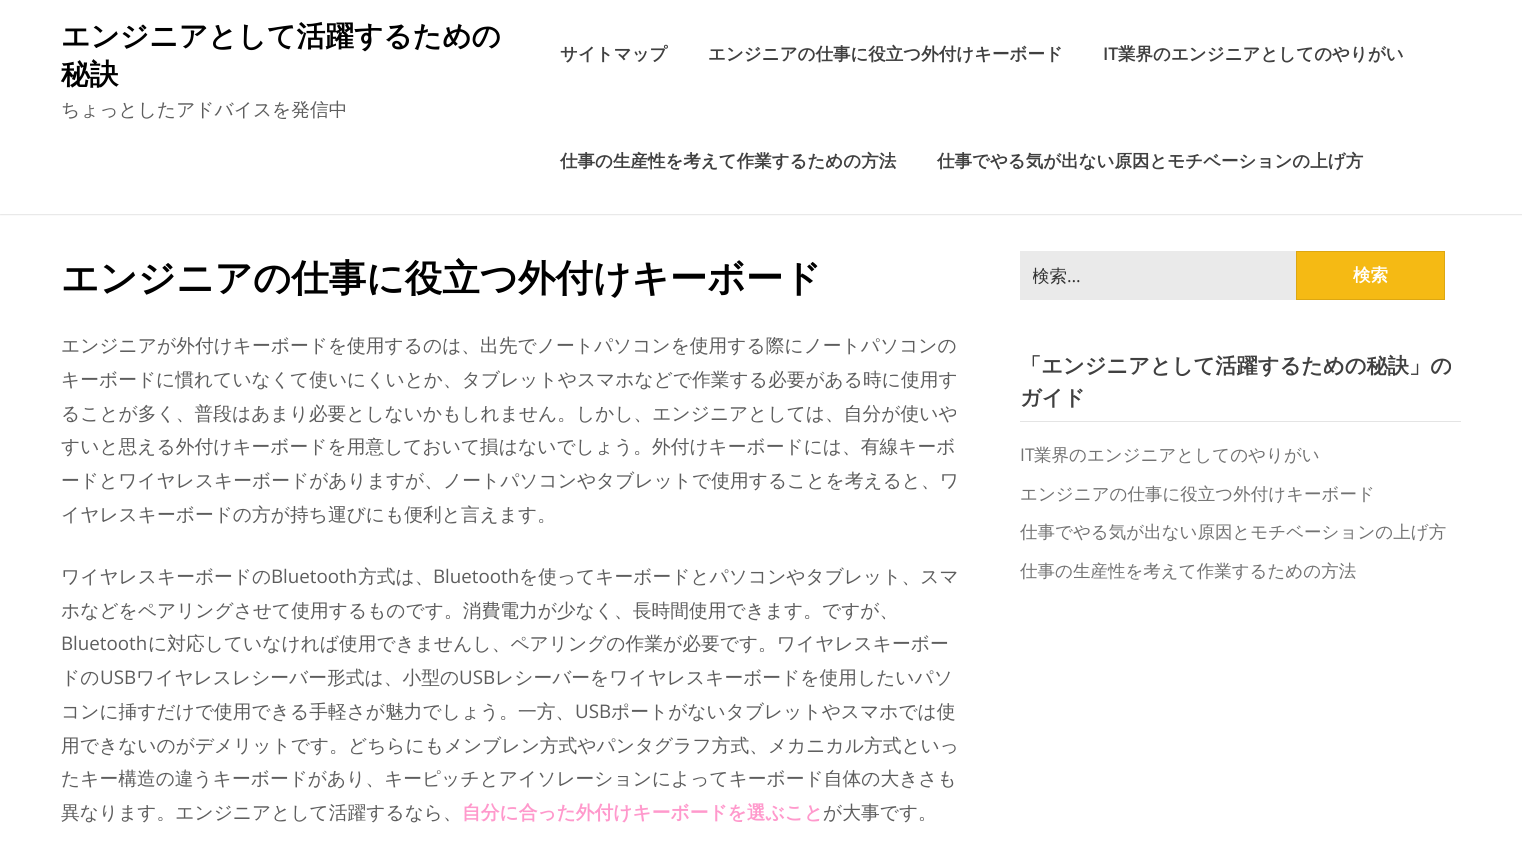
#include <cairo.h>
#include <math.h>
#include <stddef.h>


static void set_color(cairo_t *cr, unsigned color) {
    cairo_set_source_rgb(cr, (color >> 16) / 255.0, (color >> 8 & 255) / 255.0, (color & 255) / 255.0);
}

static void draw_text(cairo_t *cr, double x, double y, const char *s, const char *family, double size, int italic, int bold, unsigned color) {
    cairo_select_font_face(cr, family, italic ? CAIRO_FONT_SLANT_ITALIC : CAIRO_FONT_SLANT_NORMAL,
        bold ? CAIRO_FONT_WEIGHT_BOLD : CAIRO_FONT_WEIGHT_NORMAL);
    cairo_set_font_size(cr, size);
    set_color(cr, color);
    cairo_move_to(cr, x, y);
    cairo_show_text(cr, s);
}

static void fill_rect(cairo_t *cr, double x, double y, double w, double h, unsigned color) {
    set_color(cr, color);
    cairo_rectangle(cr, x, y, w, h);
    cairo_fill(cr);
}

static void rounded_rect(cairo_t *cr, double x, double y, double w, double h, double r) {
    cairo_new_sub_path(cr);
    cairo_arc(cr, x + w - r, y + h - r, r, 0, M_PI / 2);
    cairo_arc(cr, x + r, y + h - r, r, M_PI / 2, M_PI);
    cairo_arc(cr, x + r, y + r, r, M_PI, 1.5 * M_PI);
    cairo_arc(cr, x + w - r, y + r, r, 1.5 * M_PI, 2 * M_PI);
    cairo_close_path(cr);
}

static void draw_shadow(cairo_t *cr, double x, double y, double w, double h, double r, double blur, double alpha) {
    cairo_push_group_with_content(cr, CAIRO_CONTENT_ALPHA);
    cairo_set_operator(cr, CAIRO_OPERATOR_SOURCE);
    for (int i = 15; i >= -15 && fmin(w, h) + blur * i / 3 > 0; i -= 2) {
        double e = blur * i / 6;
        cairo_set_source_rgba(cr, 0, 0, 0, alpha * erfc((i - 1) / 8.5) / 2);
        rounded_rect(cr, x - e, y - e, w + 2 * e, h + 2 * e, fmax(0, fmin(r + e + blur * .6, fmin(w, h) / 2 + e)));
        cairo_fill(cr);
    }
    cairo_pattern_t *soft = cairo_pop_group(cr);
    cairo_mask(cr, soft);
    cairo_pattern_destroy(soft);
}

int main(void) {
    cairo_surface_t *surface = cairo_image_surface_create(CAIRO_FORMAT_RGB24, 1522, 858);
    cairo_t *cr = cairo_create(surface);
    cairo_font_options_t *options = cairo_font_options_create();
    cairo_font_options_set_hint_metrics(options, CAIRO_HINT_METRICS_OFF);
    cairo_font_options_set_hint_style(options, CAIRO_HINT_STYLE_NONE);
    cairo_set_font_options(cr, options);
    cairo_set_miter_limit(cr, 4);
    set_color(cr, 0xFFFFFF);
    cairo_paint(cr);
    set_color(cr, 0x000000);
    draw_shadow(cr, 0, 1, 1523, 214, 0, 0.5, 0.1);
    fill_rect(cr, 0, 0, 1522, 214, 0xFFFFFF);
    draw_text(cr, 61, 46, "エンジニアとして活躍するための", "WenQuanYi Zen Hei", 28.75, 0, 1, 0x000000);
    draw_text(cr, 61, 84, "秘訣", "WenQuanYi Zen Hei", 28.75, 0, 1, 0x000000);
    draw_text(cr, 61, 116, "ちょっとしたアドバイスを発信中", "WenQuanYi Zen Hei Medium", 18.75, 0, 0, 0x5D5D5D);
    draw_text(cr, 560, 60, "サイトマップ", "WenQuanYi Zen Hei", 17.5, 0, 1, 0x404040);
    draw_text(cr, 708, 60, "エンジニアの仕事に役立つ外付けキーボード", "WenQuanYi Zen Hei", 17.5, 0, 1, 0x404040);
    draw_text(cr, 1103, 60, "IT", "Open Sans SemiBold", 17.5, 0, 0, 0x404040);
    draw_text(cr, 1118, 60, "業界のエンジニアとしてのやりがい", "WenQuanYi Zen Hei", 17.5, 0, 1, 0x404040);
    draw_text(cr, 560, 167, "仕事の生産性を考えて作業するための方法", "WenQuanYi Zen Hei", 17.5, 0, 1, 0x404040);
    draw_text(cr, 937, 167, "仕事でやる気が出ない原因とモチベーションの上げ方", "WenQuanYi Zen Hei", 17.5, 0, 1, 0x404040);
    draw_text(cr, 61, 291, "エンジニアの仕事に役立つ外付けキーボード", "WenQuanYi Zen Hei", 37.5, 0, 1, 0x000000);
    draw_text(cr, 61, 352, "エンジニアが外付けキーボードを使用するのは、出先でノートパソコンを使用する際にノートパソコンの", "WenQuanYi Zen Hei Medium", 18.75, 0, 0, 0x5D5D5D);
    draw_text(cr, 61, 386, "キーボードに慣れていなくて使いにくいとか、タブレットやスマホなどで作業する必要がある時に使用す", "WenQuanYi Zen Hei Medium", 18.75, 0, 0, 0x5D5D5D);
    draw_text(cr, 61, 420, "ることが多く、普段はあまり必要としないかもしれません。しかし、エンジニアとしては、自分が使いや", "WenQuanYi Zen Hei Medium", 18.75, 0, 0, 0x5D5D5D);
    draw_text(cr, 61, 453, "すいと思える外付けキーボードを用意しておいて損はないでしょう。外付けキーボードには、有線キーボ", "WenQuanYi Zen Hei Medium", 18.75, 0, 0, 0x5D5D5D);
    draw_text(cr, 61, 487, "ードとワイヤレスキーボードがありますが、ノートパソコンやタブレットで使用することを考えると、ワ", "WenQuanYi Zen Hei Medium", 18.75, 0, 0, 0x5D5D5D);
    draw_text(cr, 61, 521, "イヤレスキーボードの方が持ち運びにも便利と言えます。", "WenQuanYi Zen Hei Medium", 18.75, 0, 0, 0x5D5D5D);
    draw_text(cr, 61, 583, "ワイヤレスキーボードの", "WenQuanYi Zen Hei Medium", 18.75, 0, 0, 0x5D5D5D);
    draw_text(cr, 271, 583, "Bluetooth", "Open Sans", 18.75, 0, 0, 0x5D5D5D);
    draw_text(cr, 358, 583, "方式は、", "WenQuanYi Zen Hei Medium", 18.75, 0, 0, 0x5D5D5D);
    draw_text(cr, 433, 583, "Bluetooth", "Open Sans", 18.75, 0, 0, 0x5D5D5D);
    draw_text(cr, 519, 583, "を使ってキーボードとパソコンやタブレット、スマ", "WenQuanYi Zen Hei Medium", 18.75, 0, 0, 0x5D5D5D);
    draw_text(cr, 61, 617, "ホなどをペアリングさせて使用するものです。消費電力が少なく、長時間使用できます。ですが、", "WenQuanYi Zen Hei Medium", 18.75, 0, 0, 0x5D5D5D);
    draw_text(cr, 61, 650, "Bluetooth", "Open Sans", 18.75, 0, 0, 0x5D5D5D);
    draw_text(cr, 148, 650, "に対応していなければ使用できませんし、ペアリングの作業が必要です。ワイヤレスキーボー", "WenQuanYi Zen Hei Medium", 18.75, 0, 0, 0x5D5D5D);
    draw_text(cr, 61, 684, "ドの", "WenQuanYi Zen Hei Medium", 18.75, 0, 0, 0x5D5D5D);
    draw_text(cr, 100, 684, "USB", "Open Sans", 18.75, 0, 0, 0x5D5D5D);
    draw_text(cr, 136, 684, "ワイヤレスレシーバー形式は、小型の", "WenQuanYi Zen Hei Medium", 18.75, 0, 0, 0x5D5D5D);
    draw_text(cr, 459, 684, "USB", "Open Sans", 18.75, 0, 0, 0x5D5D5D);
    draw_text(cr, 495, 684, "レシーバーをワイヤレスキーボードを使用したいパソ", "WenQuanYi Zen Hei Medium", 18.75, 0, 0, 0x5D5D5D);
    draw_text(cr, 61, 718, "コンに挿すだけで使用できる手軽さが魅力でしょう。一方、", "WenQuanYi Zen Hei Medium", 18.75, 0, 0, 0x5D5D5D);
    draw_text(cr, 575, 718, "USB", "Open Sans", 18.75, 0, 0, 0x5D5D5D);
    draw_text(cr, 611, 718, "ポートがないタブレットやスマホでは使", "WenQuanYi Zen Hei Medium", 18.75, 0, 0, 0x5D5D5D);
    draw_text(cr, 61, 752, "用できないのがデメリットです。どちらにもメンブレン方式やパンタグラフ方式、メカニカル方式といっ", "WenQuanYi Zen Hei Medium", 18.75, 0, 0, 0x5D5D5D);
    draw_text(cr, 61, 785, "たキー構造の違うキーボードがあり、キーピッチとアイソレーションによってキーボード自体の大きさも", "WenQuanYi Zen Hei Medium", 18.75, 0, 0, 0x5D5D5D);
    draw_text(cr, 61, 819, "異なります。エンジニアとして活躍するなら、", "WenQuanYi Zen Hei Medium", 18.75, 0, 0, 0x5D5D5D);
    draw_text(cr, 462, 819, "自分に合った外付けキーボードを選ぶこと", "WenQuanYi Zen Hei", 18.75, 0, 1, 0xFF99CC);
    draw_text(cr, 823, 819, "が大事です。", "WenQuanYi Zen Hei Medium", 18.75, 0, 0, 0x5D5D5D);
    fill_rect(cr, 1020, 251, 276, 49, 0xEAEAEA);
    cairo_save(cr);
    cairo_rectangle(cr, 1033, 264, 246, 25);
    cairo_clip(cr);
    draw_text(cr, 1032, 282, "検索", "WenQuanYi Zen Hei Medium", 17.5, 0, 0, 0x333333);
    cairo_restore(cr);
    draw_text(cr, 1067, 282, "…", "Open Sans", 17.5, 0, 0, 0x333333);
    set_color(cr, 0xF5BA14);
    cairo_rectangle(cr, 1296.5, 251.5, 148, 48);
    cairo_fill_preserve(cr);
    set_color(cr, 0xDDA712);
    cairo_set_line_width(cr, 1);
    cairo_stroke(cr);
    draw_text(cr, 1353, 281, "検索", "WenQuanYi Zen Hei", 17.5, 0, 1, 0xFFFFFF);
    fill_rect(cr, 1020, 421, 441, 1, 0xE4E4E4);
    draw_text(cr, 1020, 373, "「エンジニアとして活躍するための秘訣」の", "WenQuanYi Zen Hei", 21.25, 0, 1, 0x404040);
    draw_text(cr, 1020, 405, "ガイド", "WenQuanYi Zen Hei", 21.25, 0, 1, 0x404040);
    draw_text(cr, 1020, 461, "IT", "Open Sans", 17.5, 0, 0, 0x727272);
    draw_text(cr, 1034, 461, "業界のエンジニアとしてのやりがい", "WenQuanYi Zen Hei Medium", 17.5, 0, 0, 0x727272);
    draw_text(cr, 1020, 500, "エンジニアの仕事に役立つ外付けキーボード", "WenQuanYi Zen Hei Medium", 17.5, 0, 0, 0x727272);
    draw_text(cr, 1020, 538, "仕事でやる気が出ない原因とモチベーションの上げ方", "WenQuanYi Zen Hei Medium", 17.5, 0, 0, 0x727272);
    draw_text(cr, 1020, 577, "仕事の生産性を考えて作業するための方法", "WenQuanYi Zen Hei Medium", 17.5, 0, 0, 0x727272);
    cairo_surface_write_to_png(surface, "output.png");
    cairo_font_options_destroy(options);
    cairo_destroy(cr);
    cairo_surface_destroy(surface);
    return 0;
}
